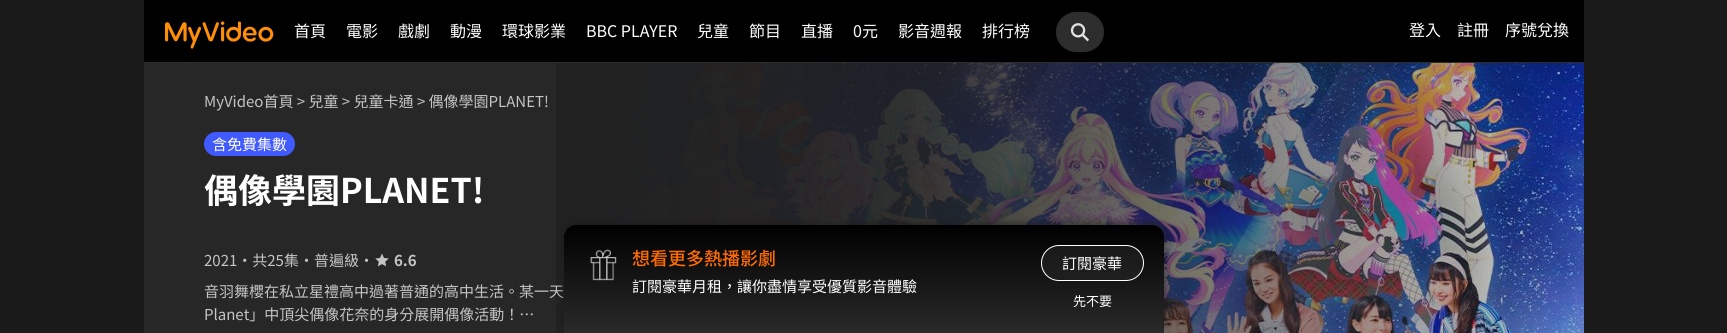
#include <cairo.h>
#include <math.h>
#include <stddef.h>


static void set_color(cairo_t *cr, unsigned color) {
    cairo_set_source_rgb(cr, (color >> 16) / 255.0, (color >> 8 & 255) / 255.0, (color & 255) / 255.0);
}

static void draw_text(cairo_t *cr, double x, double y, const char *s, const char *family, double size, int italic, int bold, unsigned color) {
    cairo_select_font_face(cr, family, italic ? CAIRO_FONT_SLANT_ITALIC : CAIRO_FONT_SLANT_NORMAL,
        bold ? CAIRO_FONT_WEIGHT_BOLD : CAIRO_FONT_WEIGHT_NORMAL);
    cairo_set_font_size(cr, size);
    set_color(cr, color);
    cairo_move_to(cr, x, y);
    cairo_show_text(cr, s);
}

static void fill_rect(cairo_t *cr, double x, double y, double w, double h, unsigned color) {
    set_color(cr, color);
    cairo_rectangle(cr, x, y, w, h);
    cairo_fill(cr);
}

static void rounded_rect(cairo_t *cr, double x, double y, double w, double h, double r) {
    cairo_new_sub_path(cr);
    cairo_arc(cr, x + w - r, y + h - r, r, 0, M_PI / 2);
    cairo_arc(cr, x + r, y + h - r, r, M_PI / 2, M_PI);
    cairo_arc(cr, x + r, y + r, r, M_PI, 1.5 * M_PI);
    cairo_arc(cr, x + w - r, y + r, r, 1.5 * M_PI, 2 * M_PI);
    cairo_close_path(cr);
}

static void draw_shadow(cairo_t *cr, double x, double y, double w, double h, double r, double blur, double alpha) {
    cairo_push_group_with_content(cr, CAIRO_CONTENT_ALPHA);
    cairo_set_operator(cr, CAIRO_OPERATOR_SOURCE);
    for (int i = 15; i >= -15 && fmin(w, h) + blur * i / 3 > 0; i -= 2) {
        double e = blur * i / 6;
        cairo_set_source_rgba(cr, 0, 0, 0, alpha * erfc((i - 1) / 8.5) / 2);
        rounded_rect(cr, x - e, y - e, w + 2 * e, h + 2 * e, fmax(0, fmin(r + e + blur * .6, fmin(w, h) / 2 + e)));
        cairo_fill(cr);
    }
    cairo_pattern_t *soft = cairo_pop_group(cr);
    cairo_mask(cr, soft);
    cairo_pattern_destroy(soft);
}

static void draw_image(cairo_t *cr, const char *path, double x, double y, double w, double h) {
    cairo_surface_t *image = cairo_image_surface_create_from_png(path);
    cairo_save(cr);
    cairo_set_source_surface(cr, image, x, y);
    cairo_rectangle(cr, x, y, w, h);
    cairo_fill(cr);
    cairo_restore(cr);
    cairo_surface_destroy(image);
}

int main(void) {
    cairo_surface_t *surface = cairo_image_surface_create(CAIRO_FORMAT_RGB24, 1727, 333);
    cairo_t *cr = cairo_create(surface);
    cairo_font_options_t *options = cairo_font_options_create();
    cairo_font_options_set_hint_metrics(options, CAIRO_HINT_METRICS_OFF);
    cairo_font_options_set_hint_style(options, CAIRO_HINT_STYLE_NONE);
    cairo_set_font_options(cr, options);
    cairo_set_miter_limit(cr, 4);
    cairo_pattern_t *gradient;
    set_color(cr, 0x1A1A1A);
    cairo_paint(cr);
    fill_rect(cr, 144, 0, 1440, 62, 0x000000);
    fill_rect(cr, 144, 62, 1440, 1, 0x2D2D2D);
    draw_image(cr, "assets/img1.png", 165, 21, 109, 28);
    draw_text(cr, 294, 37, "首頁", "Noto Sans TC", 16, 0, 0, 0xFFFFFF);
    draw_text(cr, 346, 37, "電影", "Noto Sans TC", 16, 0, 0, 0xFFFFFF);
    draw_text(cr, 398, 37, "戲劇", "Noto Sans TC", 16, 0, 0, 0xFFFFFF);
    draw_text(cr, 450, 37, "動漫", "Noto Sans TC", 16, 0, 0, 0xFFFFFF);
    draw_text(cr, 502, 37, "環球影業", "Noto Sans TC", 16, 0, 0, 0xFFFFFF);
    draw_text(cr, 586, 37, "BBC PLAYER", "Noto Sans TC", 16, 0, 0, 0xFFFFFF);
    draw_text(cr, 697, 37, "兒童", "Noto Sans TC", 16, 0, 0, 0xFFFFFF);
    draw_text(cr, 749, 37, "節目", "Noto Sans TC", 16, 0, 0, 0xFFFFFF);
    draw_text(cr, 801, 37, "直播", "Noto Sans TC", 16, 0, 0, 0xFFFFFF);
    draw_text(cr, 853, 37, "0元", "Noto Sans TC", 16, 0, 0, 0xFFFFFF);
    draw_text(cr, 898, 37, "影音週報", "Noto Sans TC", 16, 0, 0, 0xFFFFFF);
    draw_text(cr, 982, 37, "排行榜", "Noto Sans TC", 16, 0, 0, 0xFFFFFF);
    set_color(cr, 0x2D2D2D);
    rounded_rect(cr, 1056, 12, 48, 40, 20);
    cairo_fill(cr);
    draw_image(cr, "assets/img2.png", 1070, 23, 19, 19);
    draw_text(cr, 1409, 36, "登入", "Noto Sans TC", 16, 0, 0, 0xFFFFFF);
    draw_text(cr, 1457, 36, "註冊", "Noto Sans TC", 16, 0, 0, 0xFFFFFF);
    draw_text(cr, 1505, 36, "序號兌換", "Noto Sans TC", 16, 0, 0, 0xFFFFFF);
    fill_rect(cr, 144, 63, 412, 270, 0x272727);
    draw_text(cr, 204, 107, "MyVideo首頁 > 兒童 > 兒童卡通 > 偶像學園PLANET!", "Noto Sans TC", 15, 0, 0, 0xC4C4C4);
    set_color(cr, 0x405AFF);
    rounded_rect(cr, 204, 132, 91, 24, 12);
    cairo_fill(cr);
    draw_text(cr, 212, 150, "含免費集數", "Noto Sans TC", 15, 0, 0, 0xFFFFFF);
    draw_text(cr, 204, 203, "偶像學園PLANET!", "Noto Sans TC", 34, 0, 1, 0xFFFFFF);
    draw_text(cr, 204, 266, "2021・共25集・普遍級・", "Noto Sans TC", 15, 0, 0, 0xC4C4C4);
    draw_image(cr, "assets/img3.png", 375, 253, 14, 14);
    draw_text(cr, 394, 266, "6.6", "Noto Sans TC", 15, 0, 1, 0xC4C4C4);
    draw_image(cr, "assets/img4.png", 610, 63, 974, 270);
    gradient = cairo_pattern_create_linear(556, 278, 1584, 278);
    cairo_pattern_add_color_stop_rgba(gradient, 0, 0.129, 0.129, 0.129, 1);
    cairo_pattern_add_color_stop_rgba(gradient, 0.18, 0.129, 0.129, 0.129, 0.98);
    cairo_pattern_add_color_stop_rgba(gradient, 0.34, 0.129, 0.129, 0.129, 0.92);
    cairo_pattern_add_color_stop_rgba(gradient, 1, 0.129, 0.129, 0.129, 0.2);
    cairo_set_source(cr, gradient);
    cairo_pattern_destroy(gradient);
    cairo_rectangle(cr, 556, 63, 1028, 270);
    cairo_fill(cr);
    draw_text(cr, 204, 297, "音羽舞櫻在私立星禮高中過著普通的高中生活。某一天", "Noto Sans TC", 15, 0, 0, 0xC4C4C4);
    draw_text(cr, 204, 320, "Planet」中頂尖偶像花奈的身分展開偶像活動！…", "Noto Sans TC", 15, 0, 0, 0xC4C4C4);
    set_color(cr, 0x1B1B1B);
    draw_shadow(cr, 564, 224, 600, 108, 12, 4, 0.8);
    gradient = cairo_pattern_create_linear(864, 225, 864, 333);
    cairo_pattern_add_color_stop_rgba(gradient, 0, 0, 0, 0, 1);
    cairo_pattern_add_color_stop_rgba(gradient, 1, 0.165, 0.165, 0.165, 1);
    cairo_set_source(cr, gradient);
    cairo_pattern_destroy(gradient);
    cairo_new_path(cr);
    cairo_move_to(cr, 576, 225);
    cairo_line_to(cr, 1152, 225);
    cairo_curve_to(cr, 1158.5, 225, 1164, 230.5, 1164, 237);
    cairo_line_to(cr, 1164, 333);
    cairo_line_to(cr, 564, 333);
    cairo_line_to(cr, 564, 237);
    cairo_curve_to(cr, 564, 230.5, 569.5, 225, 576, 225);
    cairo_close_path(cr);
    cairo_fill(cr);
    draw_image(cr, "assets/img5.png", 590, 249, 27, 32);
    draw_text(cr, 632, 265, "想看更多熱播影劇", "Noto Sans TC Medium", 18, 0, 0, 0xFF6B00);
    draw_text(cr, 632, 292, "訂閱豪華月租，讓你盡情享受優質影音體驗", "Noto Sans TC", 15, 0, 0, 0xFFFFFF);
    cairo_set_source_rgba(cr, 0.149, 0.149, 0.149, 0.6);
    rounded_rect(cr, 1041.5, 245.5, 102, 35, 17.5);
    cairo_fill_preserve(cr);
    set_color(cr, 0xFFFFFF);
    cairo_set_line_width(cr, 1);
    cairo_stroke(cr);
    draw_text(cr, 1062, 269, "訂閱豪華", "Noto Sans TC", 15, 0, 0, 0xFFFFFF);
    draw_text(cr, 1073, 306, "先不要", "Noto Sans TC", 13, 0, 0, 0xFFFFFF);
    cairo_surface_write_to_png(surface, "output.png");
    cairo_font_options_destroy(options);
    cairo_destroy(cr);
    cairo_surface_destroy(surface);
    return 0;
}
